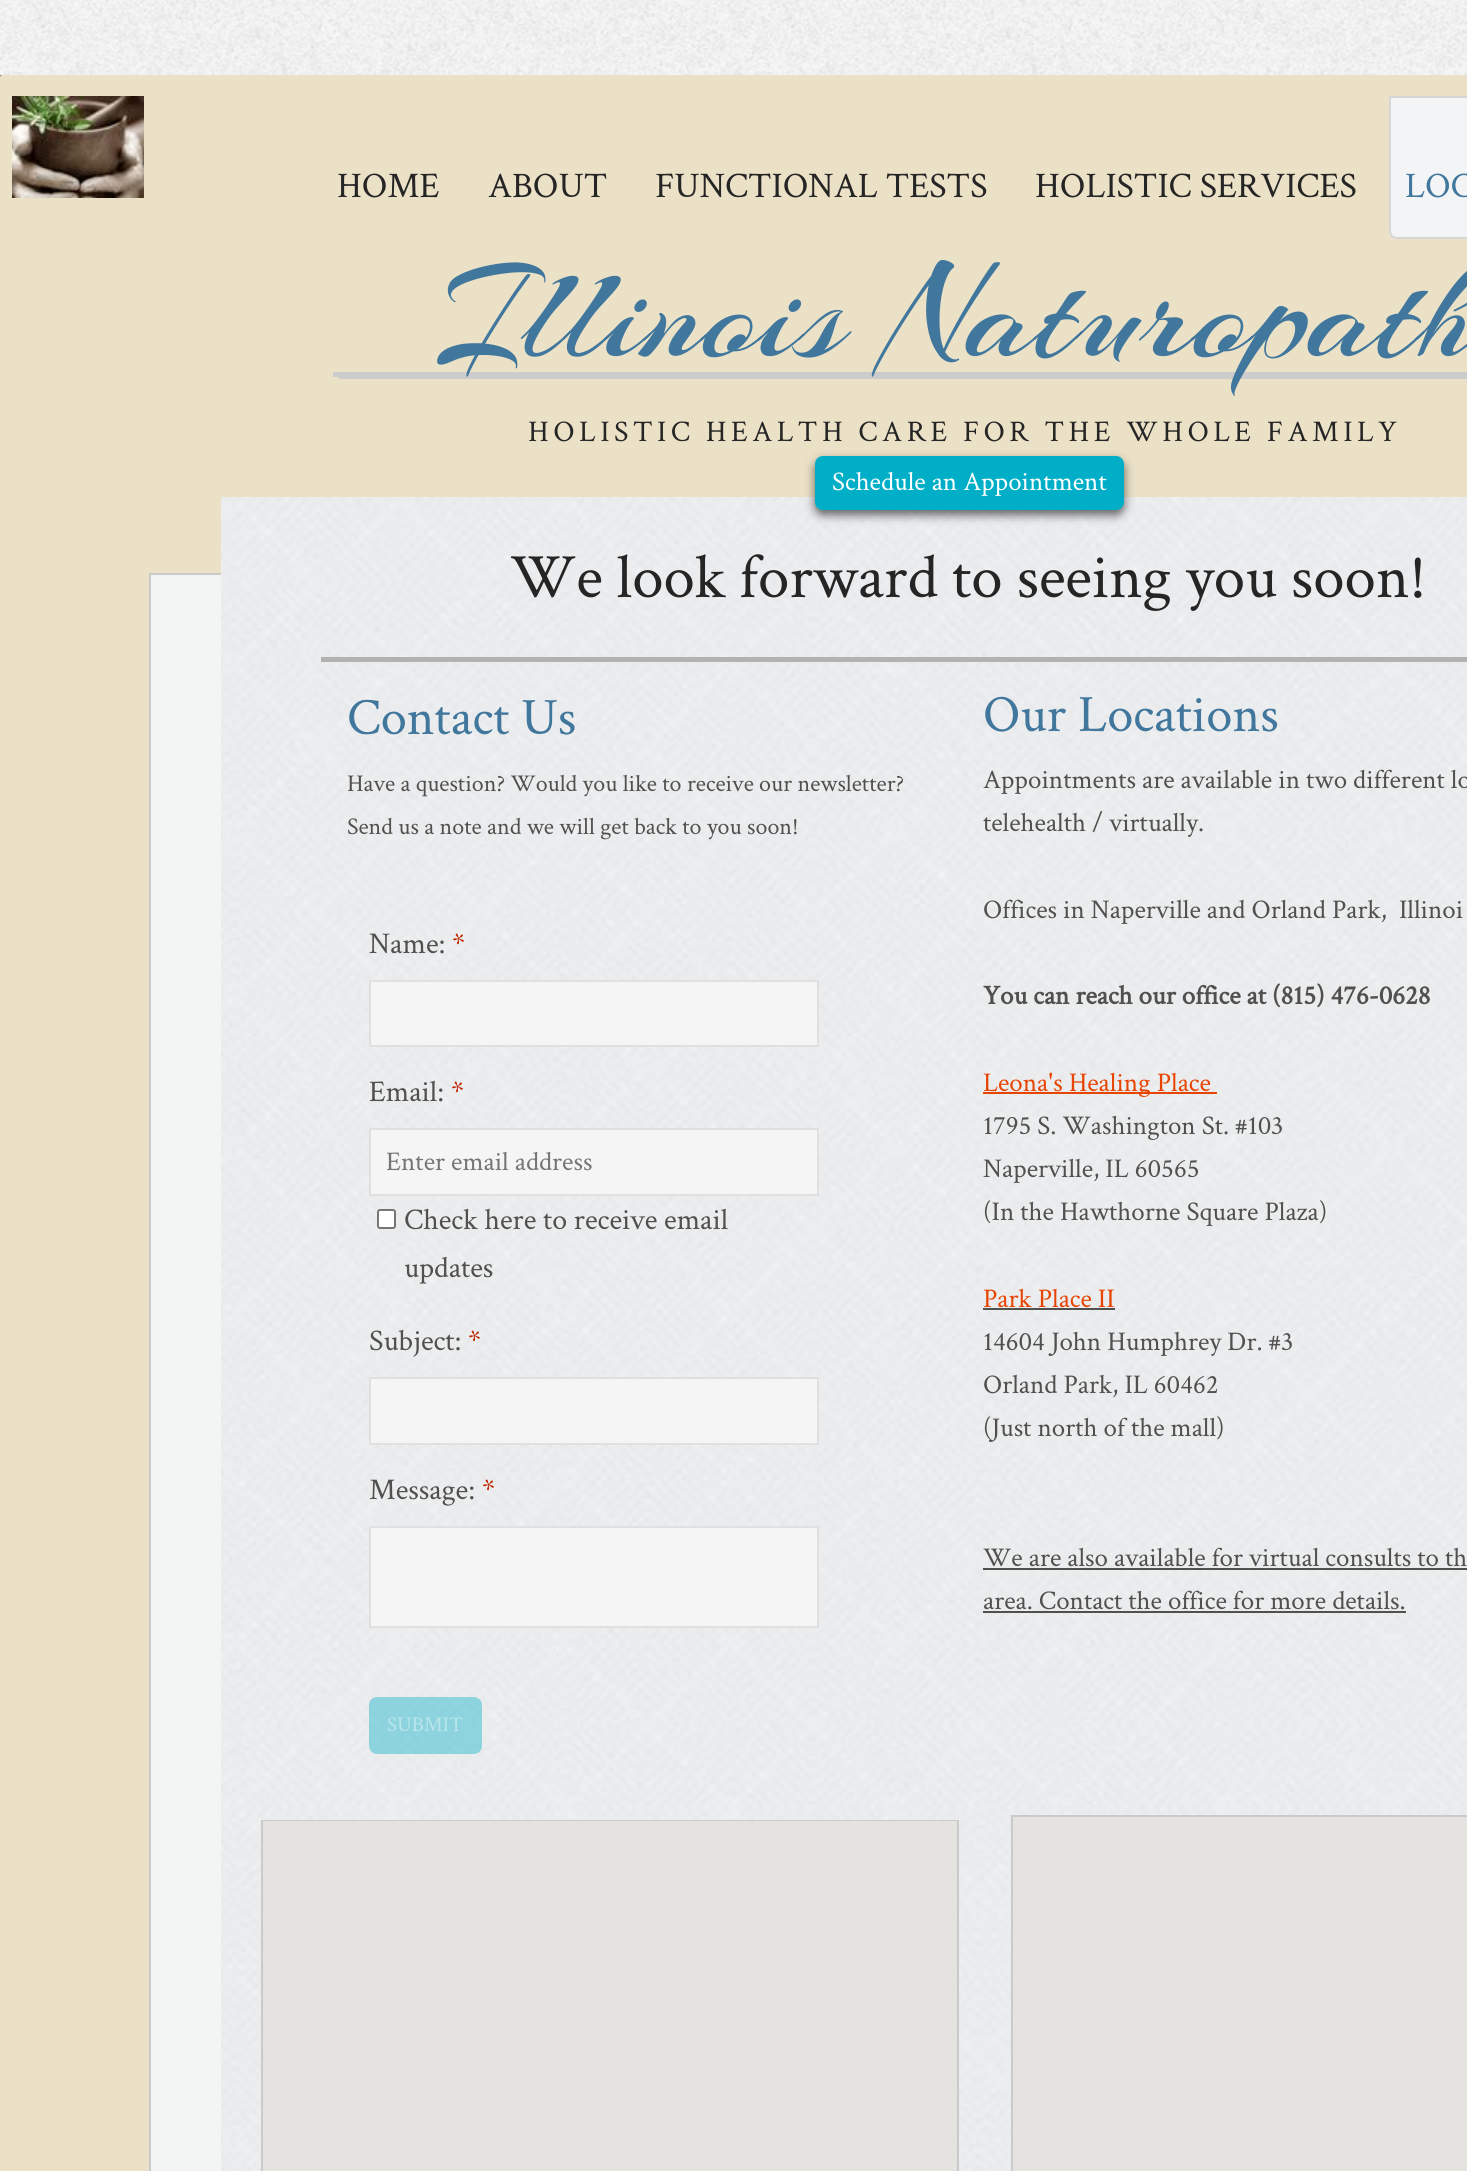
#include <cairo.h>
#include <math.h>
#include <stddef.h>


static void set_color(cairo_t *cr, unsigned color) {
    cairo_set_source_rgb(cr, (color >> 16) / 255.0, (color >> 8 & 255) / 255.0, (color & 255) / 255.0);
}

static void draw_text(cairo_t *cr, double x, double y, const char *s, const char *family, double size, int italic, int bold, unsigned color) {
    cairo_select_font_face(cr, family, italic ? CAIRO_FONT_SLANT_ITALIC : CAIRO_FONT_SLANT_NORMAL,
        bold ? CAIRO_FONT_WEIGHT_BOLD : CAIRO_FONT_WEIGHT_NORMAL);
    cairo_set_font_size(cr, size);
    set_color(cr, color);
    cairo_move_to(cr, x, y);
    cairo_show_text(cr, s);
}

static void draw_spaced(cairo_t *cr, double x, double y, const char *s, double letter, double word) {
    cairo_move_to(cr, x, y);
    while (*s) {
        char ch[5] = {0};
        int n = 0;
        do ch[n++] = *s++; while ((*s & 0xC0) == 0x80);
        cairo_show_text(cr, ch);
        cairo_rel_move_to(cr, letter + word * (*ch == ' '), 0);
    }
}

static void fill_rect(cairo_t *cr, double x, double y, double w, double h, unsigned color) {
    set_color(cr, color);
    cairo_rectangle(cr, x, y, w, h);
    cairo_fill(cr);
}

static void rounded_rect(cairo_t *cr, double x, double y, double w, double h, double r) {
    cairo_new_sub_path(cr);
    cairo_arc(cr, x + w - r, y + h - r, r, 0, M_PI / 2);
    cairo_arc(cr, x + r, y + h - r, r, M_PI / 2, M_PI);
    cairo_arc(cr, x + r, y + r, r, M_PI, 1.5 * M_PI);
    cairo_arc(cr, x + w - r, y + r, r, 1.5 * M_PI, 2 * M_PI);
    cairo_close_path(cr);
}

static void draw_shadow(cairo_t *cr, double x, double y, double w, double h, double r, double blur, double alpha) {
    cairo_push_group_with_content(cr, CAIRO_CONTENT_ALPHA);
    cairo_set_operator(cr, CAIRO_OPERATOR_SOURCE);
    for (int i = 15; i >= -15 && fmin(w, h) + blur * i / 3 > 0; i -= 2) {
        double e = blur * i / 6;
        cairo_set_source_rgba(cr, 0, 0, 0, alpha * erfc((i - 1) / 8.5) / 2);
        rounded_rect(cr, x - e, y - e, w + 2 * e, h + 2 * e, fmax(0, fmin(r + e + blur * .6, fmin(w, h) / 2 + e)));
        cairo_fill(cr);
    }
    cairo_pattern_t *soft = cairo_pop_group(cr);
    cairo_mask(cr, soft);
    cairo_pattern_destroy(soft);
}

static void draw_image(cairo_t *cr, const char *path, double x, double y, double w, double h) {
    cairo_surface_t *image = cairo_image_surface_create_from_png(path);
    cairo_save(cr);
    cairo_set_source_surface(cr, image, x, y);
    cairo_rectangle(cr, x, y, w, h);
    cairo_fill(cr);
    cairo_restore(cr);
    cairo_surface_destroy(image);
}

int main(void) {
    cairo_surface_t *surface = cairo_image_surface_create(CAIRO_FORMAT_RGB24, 1467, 2171);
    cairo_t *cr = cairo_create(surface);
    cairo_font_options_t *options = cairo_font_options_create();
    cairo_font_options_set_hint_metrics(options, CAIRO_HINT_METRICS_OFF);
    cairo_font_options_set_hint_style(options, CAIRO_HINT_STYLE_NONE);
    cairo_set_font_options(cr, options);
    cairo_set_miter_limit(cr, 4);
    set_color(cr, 0xFFFFFF);
    cairo_paint(cr);
    draw_image(cr, "assets/img1.png", 0, 0, 1467, 75);
    fill_rect(cr, 0, 75, 1467, 2096, 0xEBE1C7);
    draw_image(cr, "assets/img2.png", 0, 75, 2, 2);
    draw_image(cr, "assets/img3.png", 12, 96, 132, 102);
    draw_text(cr, 337, 197, "HOME", "Crimson Text", 36, 0, 0, 0x252525);
    draw_text(cr, 488, 197, "ABOUT", "Crimson Text", 36, 0, 0, 0x252525);
    draw_text(cr, 655, 197, "FUNCTIONAL TESTS", "Crimson Text", 36, 0, 0, 0x252525);
    draw_text(cr, 1035, 197, "HOLISTIC SERVICES", "Crimson Text", 36, 0, 0, 0x252525);
    set_color(cr, 0xF2F4F5);
    cairo_new_path(cr);
    cairo_move_to(cr, 1389, 96);
    cairo_line_to(cr, 1467, 96);
    cairo_line_to(cr, 1467, 239);
    cairo_line_to(cr, 1397, 239);
    cairo_curve_to(cr, 1392.5, 239, 1389, 235.5, 1389, 231);
    cairo_close_path(cr);
    cairo_fill(cr);
    cairo_new_path(cr);
    cairo_move_to(cr, 1390, 97);
    cairo_line_to(cr, 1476, 97);
    cairo_line_to(cr, 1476, 231);
    cairo_curve_to(cr, 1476, 235, 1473, 238, 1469, 238);
    cairo_line_to(cr, 1397, 238);
    cairo_curve_to(cr, 1393, 238, 1390, 235, 1390, 231);
    cairo_close_path(cr);
    set_color(cr, 0xD7D6D4);
    cairo_stroke(cr);
    draw_text(cr, 1405, 197, "LOC", "Crimson Text", 36, 0, 0, 0x41779D);
    fill_rect(cr, 333, 372, 1134, 5, 0xCCCCCC);
    fill_rect(cr, 339, 377, 1128, 2, 0xCCCCCC);
    draw_text(cr, 436, 356, "Illinois Naturopath", "Arizonia", 144, 0, 0, 0x41779D);
    cairo_select_font_face(cr, "Crimson Text", CAIRO_FONT_SLANT_NORMAL, CAIRO_FONT_WEIGHT_NORMAL);
    cairo_set_font_size(cr, 30);
    set_color(cr, 0x252525);
    draw_spaced(cr, 528, 441, "HOLISTIC HEALTH CARE FOR THE WHOLE FAMILY", 4.5, 0);
    fill_rect(cr, 151, 575, 70, 1596, 0xF3F5F5);
    cairo_rectangle(cr, 150, 574, 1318, 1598);
    set_color(cr, 0xCACACA);
    cairo_stroke(cr);
    draw_image(cr, "assets/img4.png", 221, 497, 1246, 1674);
    set_color(cr, 0x323232);
    draw_shadow(cr, 815, 461, 309, 54, 8, 5, 0.75);
    set_color(cr, 0x00AFC7);
    rounded_rect(cr, 815, 456, 309, 54, 8);
    cairo_fill(cr);
    draw_text(cr, 832, 490, "Schedule an Appointment", "Crimson Text", 27, 0, 0, 0xFFFFFF);
    draw_text(cr, 510, 597, "We look forward to seeing you soon!", "Crimson Text", 63, 0, 0, 0x252525);
    fill_rect(cr, 321, 657, 1146, 5, 0xB2B2B2);
    draw_text(cr, 347, 734, "Contact Us", "Crimson Text", 52.5, 0, 0, 0x41779D);
    draw_text(cr, 347, 791, "Have a question? Would you like to receive our newsletter?", "Crimson Text", 24, 0, 0, 0x50504E);
    draw_text(cr, 347, 834, "Send us a note and we will get back to you soon!", "Crimson Text", 24, 0, 0, 0x50504E);
    draw_text(cr, 983, 731, "Our Locations", "Crimson Text", 52.5, 0, 0, 0x41779D);
    draw_text(cr, 983, 788, "Appointments are available in two different lo", "Crimson Text", 27, 0, 0, 0x50504E);
    draw_text(cr, 983, 831, "telehealth / virtually.", "Crimson Text", 27, 0, 0, 0x50504E);
    draw_text(cr, 983, 918, "Offices in Naperville and Orland Park,  Illinoi", "Crimson Text", 27, 0, 0, 0x50504E);
    draw_text(cr, 983, 1004, "You can reach our office at (815) 476-0628", "Crimson Text", 27, 0, 1, 0x50504E);
    fill_rect(cr, 983, 1092, 234, 2, 0xE74402);
    draw_text(cr, 983, 1091, "Leona's Healing Place", "Crimson Text", 27, 0, 0, 0xE74402);
    draw_text(cr, 983, 1134, "1795 S. Washington St. #103", "Crimson Text", 27, 0, 0, 0x50504E);
    draw_text(cr, 983, 1177, "Naperville, IL 60565", "Crimson Text", 27, 0, 0, 0x50504E);
    draw_text(cr, 983, 1220, "(In the Hawthorne Square Plaza)", "Crimson Text", 27, 0, 0, 0x50504E);
    draw_text(cr, 983, 1307, "Park Place II", "Crimson Text", 27, 0, 0, 0xE74402);
    fill_rect(cr, 983, 1308, 132, 2, 0x50504E);
    draw_text(cr, 983, 1350, "14604 John Humphrey Dr. #3", "Crimson Text", 27, 0, 0, 0x50504E);
    draw_text(cr, 983, 1393, "Orland Park, IL 60462", "Crimson Text", 27, 0, 0, 0x50504E);
    draw_text(cr, 983, 1436, "(Just north of the mall)", "Crimson Text", 27, 0, 0, 0x50504E);
    draw_text(cr, 983, 1566, "We are also available for virtual consults to th", "Crimson Text", 27, 0, 0, 0x50504E);
    fill_rect(cr, 983, 1568, 484, 2, 0x50504E);
    draw_text(cr, 983, 1609, "area. Contact the office for more details.", "Crimson Text", 27, 0, 0, 0x50504E);
    fill_rect(cr, 983, 1611, 423, 2, 0x50504E);
    draw_text(cr, 369, 953, "Name:", "Crimson Text", 30, 0, 0, 0x50504E);
    draw_text(cr, 452, 953, "*", "Crimson Text", 30, 0, 0, 0xBE2602);
    set_color(cr, 0xF5F5F5);
    cairo_rectangle(cr, 370, 981, 448, 65);
    cairo_fill_preserve(cr);
    set_color(cr, 0xE0E0E0);
    cairo_stroke(cr);
    draw_text(cr, 369, 1101, "Email:", "Crimson Text", 30, 0, 0, 0x50504E);
    draw_text(cr, 451, 1101, "*", "Crimson Text", 30, 0, 0, 0xBE2602);
    set_color(cr, 0xF5F5F5);
    cairo_rectangle(cr, 370, 1129, 448, 66);
    cairo_fill_preserve(cr);
    set_color(cr, 0xE0E0E0);
    cairo_stroke(cr);
    draw_text(cr, 386, 1170, "Enter email address", "Crimson Text", 27, 0, 0, 0x757575);
    set_color(cr, 0xFFFFFF);
    rounded_rect(cr, 378, 1210, 17, 18, 2);
    cairo_fill_preserve(cr);
    set_color(cr, 0x767676);
    cairo_stroke(cr);
    draw_text(cr, 404, 1229, "Check here to receive email", "Crimson Text", 30, 0, 0, 0x50504E);
    draw_text(cr, 404, 1277, "updates", "Crimson Text", 30, 0, 0, 0x50504E);
    draw_text(cr, 369, 1350, "Subject:", "Crimson Text", 30, 0, 0, 0x50504E);
    draw_text(cr, 468, 1350, "*", "Crimson Text", 30, 0, 0, 0xBE2602);
    set_color(cr, 0xF5F5F5);
    cairo_rectangle(cr, 370, 1378, 448, 66);
    cairo_fill_preserve(cr);
    set_color(cr, 0xE0E0E0);
    cairo_stroke(cr);
    draw_text(cr, 369, 1499, "Message:", "Crimson Text", 30, 0, 0, 0x50504E);
    draw_text(cr, 482, 1499, "*", "Crimson Text", 30, 0, 0, 0xBE2602);
    set_color(cr, 0xF5F5F5);
    cairo_rectangle(cr, 370, 1527, 448, 100);
    cairo_fill_preserve(cr);
    set_color(cr, 0xE0E0E0);
    cairo_stroke(cr);
    cairo_set_source_rgba(cr, 0, 0.686, 0.78, 0.4);
    rounded_rect(cr, 369, 1697, 113, 57, 8);
    cairo_fill(cr);
    draw_text(cr, 387, 1731, "SUBMIT", "Crimson Text", 21, 0, 0, 0xBAE5EB);
    cairo_rectangle(cr, 262, 1821, 696, 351);
    set_color(cr, 0xCACACA);
    cairo_stroke(cr);
    fill_rect(cr, 263, 1821, 694, 350, 0xE5E3DF);
    cairo_rectangle(cr, 1012, 1816, 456, 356);
    set_color(cr, 0xCACACA);
    cairo_stroke(cr);
    fill_rect(cr, 1013, 1817, 454, 354, 0xE5E3DF);
    cairo_surface_write_to_png(surface, "output.png");
    cairo_font_options_destroy(options);
    cairo_destroy(cr);
    cairo_surface_destroy(surface);
    return 0;
}
